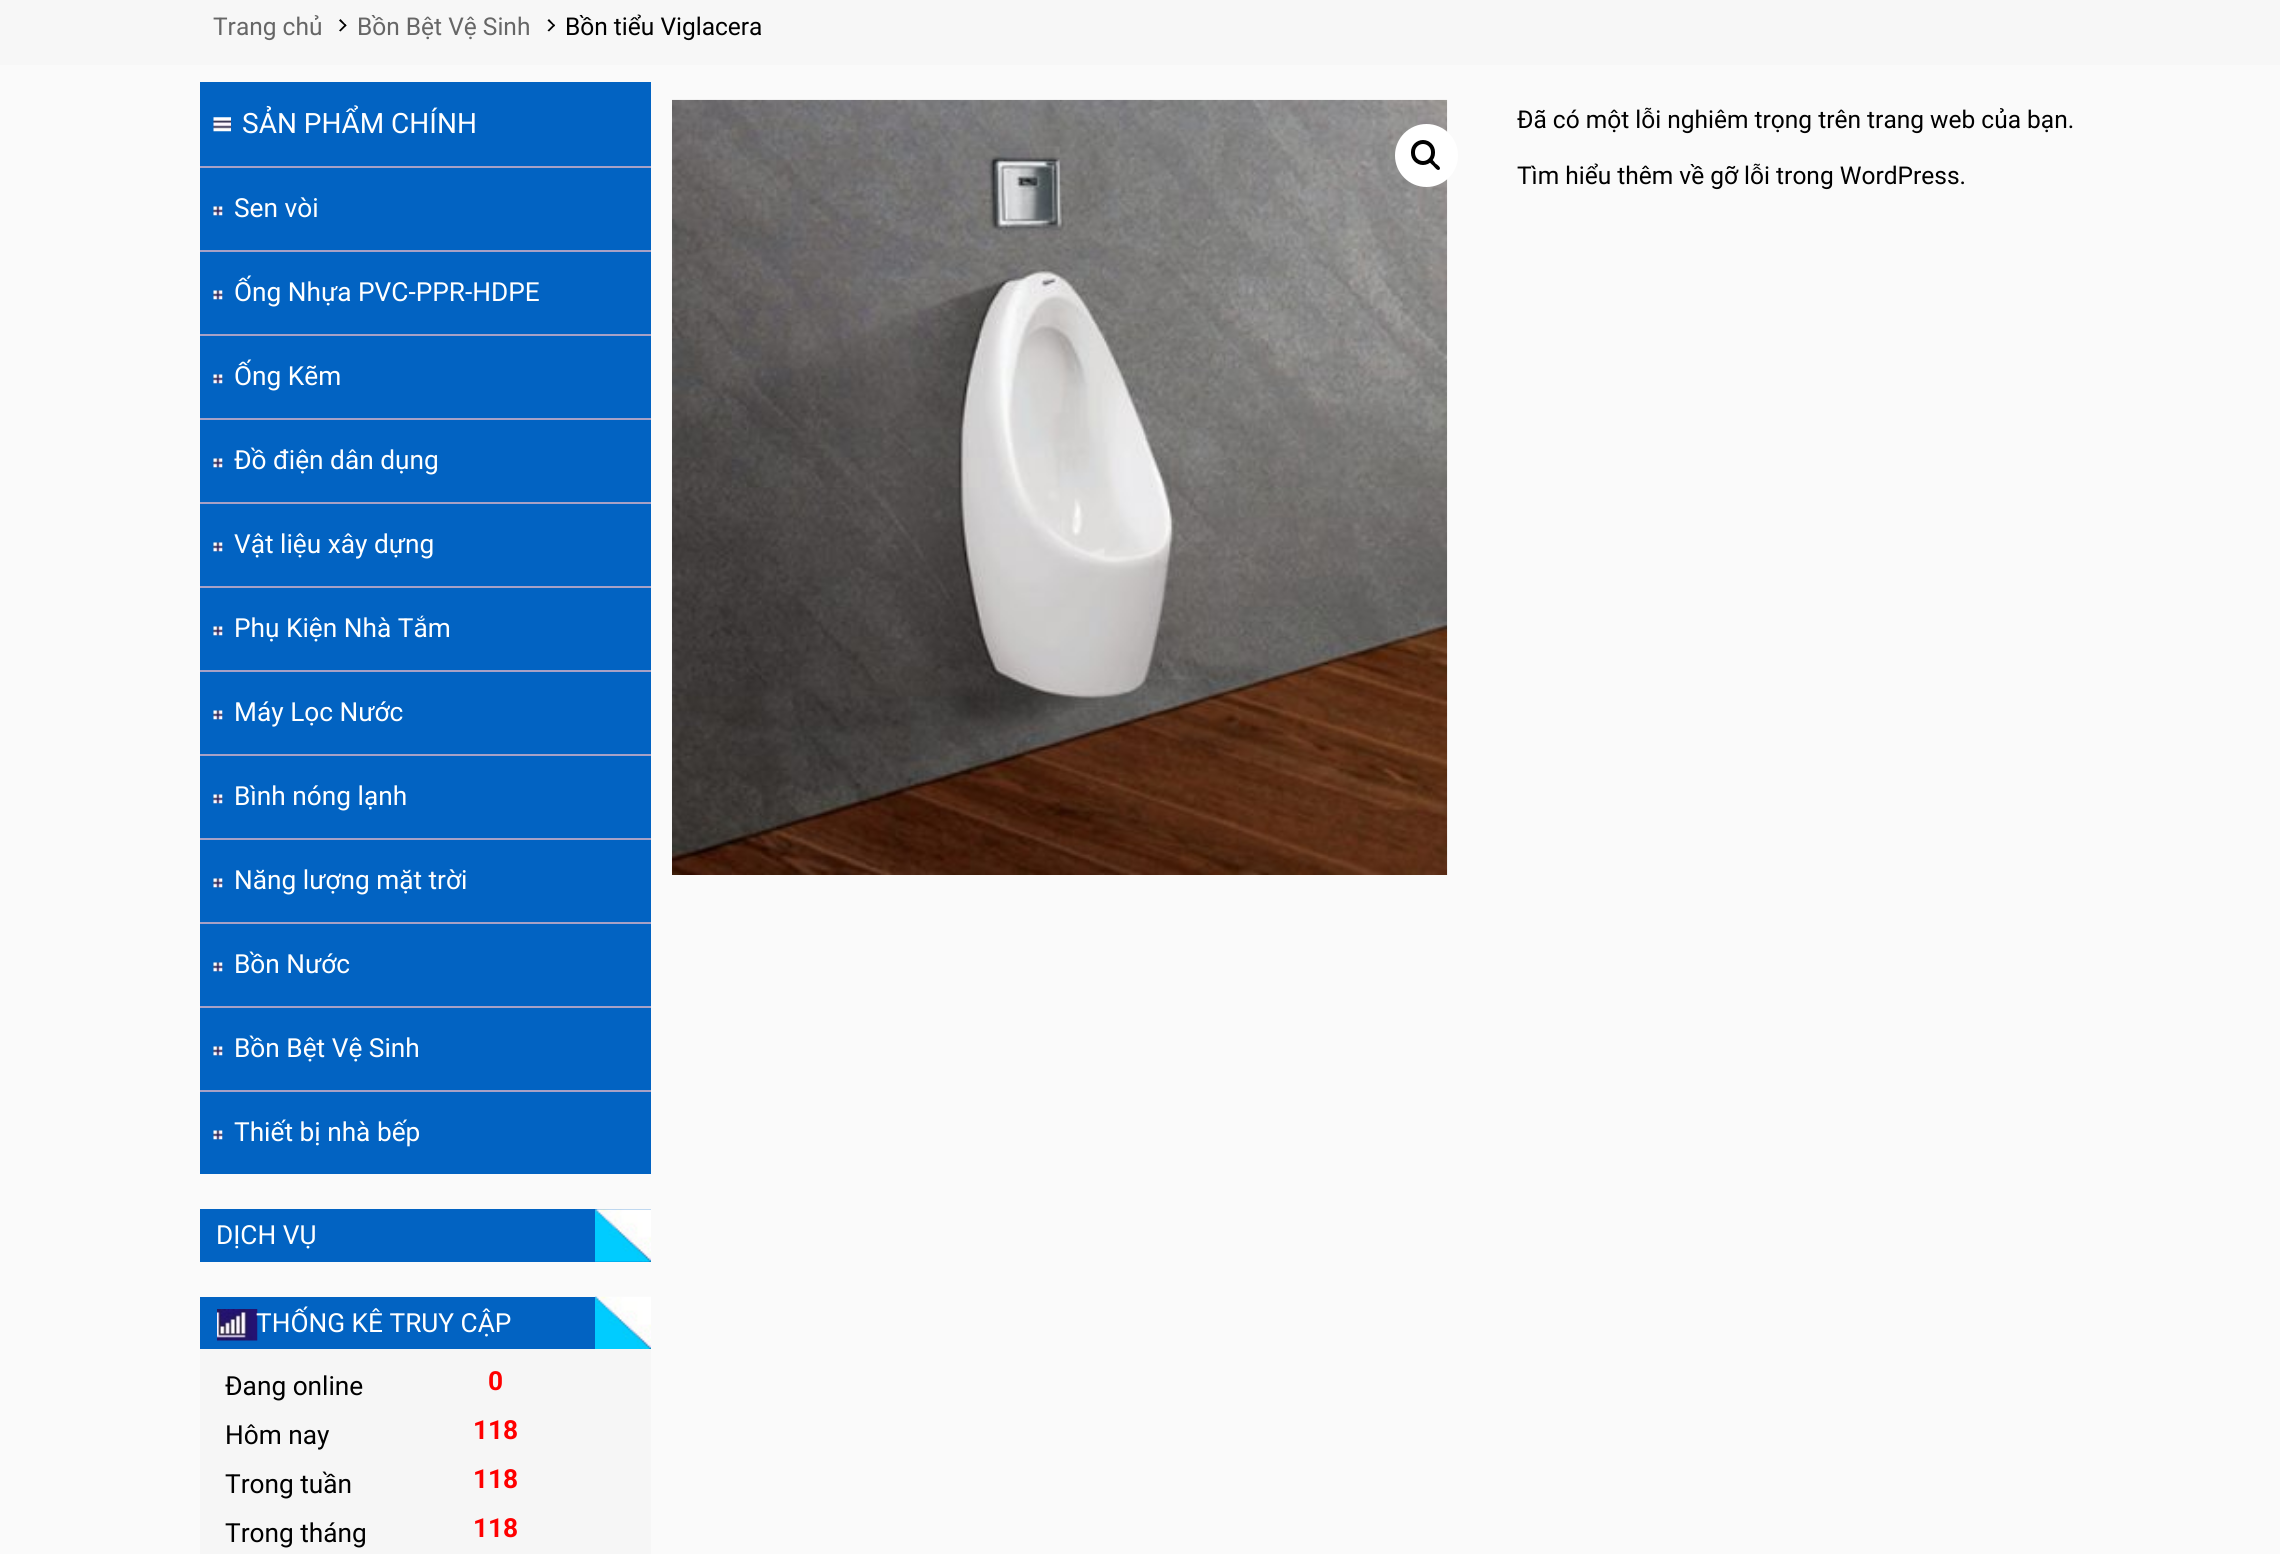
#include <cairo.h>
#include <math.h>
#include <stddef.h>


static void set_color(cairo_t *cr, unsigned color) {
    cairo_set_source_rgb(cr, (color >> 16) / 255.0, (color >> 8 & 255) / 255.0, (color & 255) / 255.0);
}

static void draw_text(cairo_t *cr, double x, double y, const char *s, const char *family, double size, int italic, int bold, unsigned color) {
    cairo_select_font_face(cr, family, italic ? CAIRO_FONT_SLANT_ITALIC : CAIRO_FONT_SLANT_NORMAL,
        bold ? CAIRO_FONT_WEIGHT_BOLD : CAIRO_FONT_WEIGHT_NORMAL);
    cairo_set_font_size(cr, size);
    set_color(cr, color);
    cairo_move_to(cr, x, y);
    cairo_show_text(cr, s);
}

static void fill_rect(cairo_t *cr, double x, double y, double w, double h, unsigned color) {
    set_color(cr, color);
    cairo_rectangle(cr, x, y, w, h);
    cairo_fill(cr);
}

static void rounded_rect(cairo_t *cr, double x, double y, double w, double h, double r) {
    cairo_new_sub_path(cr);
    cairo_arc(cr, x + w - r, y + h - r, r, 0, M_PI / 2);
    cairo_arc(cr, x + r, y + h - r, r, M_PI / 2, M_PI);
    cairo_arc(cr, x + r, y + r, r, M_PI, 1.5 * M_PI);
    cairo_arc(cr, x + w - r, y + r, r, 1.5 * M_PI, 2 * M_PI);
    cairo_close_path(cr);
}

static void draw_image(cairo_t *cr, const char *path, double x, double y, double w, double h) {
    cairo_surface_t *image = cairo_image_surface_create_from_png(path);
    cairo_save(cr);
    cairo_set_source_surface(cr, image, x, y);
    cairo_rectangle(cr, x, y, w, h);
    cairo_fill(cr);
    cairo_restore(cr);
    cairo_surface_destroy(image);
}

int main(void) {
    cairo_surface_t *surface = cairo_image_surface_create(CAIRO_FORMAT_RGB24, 2280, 1554);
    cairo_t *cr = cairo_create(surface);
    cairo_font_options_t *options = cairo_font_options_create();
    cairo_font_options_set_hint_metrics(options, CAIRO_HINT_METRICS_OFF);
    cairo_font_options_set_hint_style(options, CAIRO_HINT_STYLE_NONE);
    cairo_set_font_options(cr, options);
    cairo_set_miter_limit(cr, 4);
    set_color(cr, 0xFAFAFA);
    cairo_paint(cr);
    fill_rect(cr, 0, 0, 2280, 65, 0xF7F7F7);
    draw_text(cr, 213, 35, "Trang chủ", "Roboto", 24.5, 0, 0, 0x666666);
    set_color(cr, 0x000000);
    cairo_new_path(cr);
    cairo_move_to(cr, 339, 20.5);
    cairo_line_to(cr, 340.5, 19);
    cairo_line_to(cr, 346.5, 25.5);
    cairo_line_to(cr, 345.5, 26.5);
    cairo_close_path(cr);
    cairo_fill(cr);
    cairo_new_path(cr);
    cairo_move_to(cr, 339, 30.5);
    cairo_line_to(cr, 345.5, 24);
    cairo_line_to(cr, 346.5, 25.5);
    cairo_line_to(cr, 340.5, 31.5);
    cairo_close_path(cr);
    cairo_fill(cr);
    draw_text(cr, 357, 35, "Bồn Bệt Vệ Sinh", "Roboto", 24.5, 0, 0, 0x666666);
    set_color(cr, 0x000000);
    cairo_new_path(cr);
    cairo_move_to(cr, 547.5, 20.5);
    cairo_line_to(cr, 549, 19);
    cairo_line_to(cr, 555, 25.5);
    cairo_line_to(cr, 554, 26.5);
    cairo_close_path(cr);
    cairo_fill(cr);
    cairo_new_path(cr);
    cairo_move_to(cr, 547.5, 30.5);
    cairo_line_to(cr, 554, 24);
    cairo_line_to(cr, 555, 25.5);
    cairo_line_to(cr, 549, 31.5);
    cairo_close_path(cr);
    cairo_fill(cr);
    draw_text(cr, 565, 35, "Bồn tiểu Viglacera", "Roboto", 24.5, 0, 0, 0x000000);
    fill_rect(cr, 200, 82, 451, 84, 0x0263C2);
    draw_image(cr, "assets/img1.png", 213, 117, 18, 15);
    draw_text(cr, 242, 133, "SẢN PHẨM CHÍNH", "Roboto", 28, 0, 0, 0xFFFFFF);
    fill_rect(cr, 200, 168, 451, 1006, 0x0263C2);
    draw_image(cr, "assets/img2.png", 213, 206, 10, 10);
    fill_rect(cr, 200, 166, 451, 2, 0xA7A1C6);
    draw_text(cr, 234, 217, "Sen vòi", "Roboto", 26.25, 0, 0, 0xFFFFFF);
    draw_image(cr, "assets/img2.png", 213, 290, 10, 10);
    fill_rect(cr, 200, 250, 451, 2, 0xA7A1C6);
    draw_text(cr, 234, 301, "Ống Nhựa PVC-PPR-HDPE", "Roboto", 26.25, 0, 0, 0xFFFFFF);
    draw_image(cr, "assets/img2.png", 213, 374, 10, 10);
    fill_rect(cr, 200, 334, 451, 2, 0xA7A1C6);
    draw_text(cr, 234, 385, "Ống Kẽm", "Roboto", 26.25, 0, 0, 0xFFFFFF);
    draw_image(cr, "assets/img2.png", 213, 458, 10, 10);
    fill_rect(cr, 200, 418, 451, 2, 0xA7A1C6);
    draw_text(cr, 234, 469, "Đồ điện dân dụng", "Roboto", 26.25, 0, 0, 0xFFFFFF);
    draw_image(cr, "assets/img2.png", 213, 542, 10, 10);
    fill_rect(cr, 200, 502, 451, 2, 0xA7A1C6);
    draw_text(cr, 234, 553, "Vật liệu xây dựng", "Roboto", 26.25, 0, 0, 0xFFFFFF);
    draw_image(cr, "assets/img2.png", 213, 626, 10, 10);
    fill_rect(cr, 200, 586, 451, 2, 0xA7A1C6);
    draw_text(cr, 234, 637, "Phụ Kiện Nhà Tắm", "Roboto", 26.25, 0, 0, 0xFFFFFF);
    draw_image(cr, "assets/img2.png", 213, 710, 10, 10);
    fill_rect(cr, 200, 670, 451, 2, 0xA7A1C6);
    draw_text(cr, 234, 721, "Máy Lọc Nước", "Roboto", 26.25, 0, 0, 0xFFFFFF);
    draw_image(cr, "assets/img2.png", 213, 794, 10, 10);
    fill_rect(cr, 200, 754, 451, 2, 0xA7A1C6);
    draw_text(cr, 234, 805, "Bình nóng lạnh", "Roboto", 26.25, 0, 0, 0xFFFFFF);
    draw_image(cr, "assets/img2.png", 213, 878, 10, 10);
    fill_rect(cr, 200, 838, 451, 2, 0xA7A1C6);
    draw_text(cr, 234, 889, "Năng lượng mặt trời", "Roboto", 26.25, 0, 0, 0xFFFFFF);
    draw_image(cr, "assets/img2.png", 213, 962, 10, 10);
    fill_rect(cr, 200, 922, 451, 2, 0xA7A1C6);
    draw_text(cr, 234, 973, "Bồn Nước", "Roboto", 26.25, 0, 0, 0xFFFFFF);
    draw_image(cr, "assets/img2.png", 213, 1046, 10, 10);
    fill_rect(cr, 200, 1006, 451, 2, 0xA7A1C6);
    draw_text(cr, 234, 1057, "Bồn Bệt Vệ Sinh", "Roboto", 26.25, 0, 0, 0xFFFFFF);
    draw_image(cr, "assets/img2.png", 213, 1130, 10, 10);
    fill_rect(cr, 200, 1090, 451, 2, 0xA7A1C6);
    draw_text(cr, 234, 1141, "Thiết bị nhà bếp", "Roboto", 26.25, 0, 0, 0xFFFFFF);
    fill_rect(cr, 200, 1209, 451, 53, 0x0263C2);
    draw_image(cr, "assets/img3.png", 595, 1209, 56, 53);
    draw_text(cr, 216, 1244, "DỊCH VỤ", "Roboto", 26.25, 0, 0, 0xFFFFFF);
    fill_rect(cr, 200, 1297, 395, 52, 0x0263C2);
    draw_image(cr, "assets/img4.png", 595, 1296, 56, 53);
    draw_image(cr, "assets/img5.png", 217, 1309, 41, 32);
    draw_text(cr, 256, 1332, "THỐNG KÊ TRUY CẬP", "Roboto", 26.25, 0, 0, 0xFFFFFF);
    fill_rect(cr, 200, 1349, 451, 205, 0xF6F6F6);
    draw_text(cr, 225, 1395, "Đang online", "Roboto", 26.25, 0, 0, 0x000000);
    draw_text(cr, 225, 1444, "Hôm nay", "Roboto", 26.25, 0, 0, 0x000000);
    draw_text(cr, 225, 1493, "Trong tuần", "Roboto", 26.25, 0, 0, 0x000000);
    draw_text(cr, 225, 1542, "Trong tháng", "Roboto", 26.25, 0, 0, 0x000000);
    draw_text(cr, 488, 1390, "0", "Roboto", 26.25, 0, 1, 0xFF0000);
    draw_text(cr, 473, 1439, "118", "Roboto", 26.25, 0, 1, 0xFF0000);
    draw_text(cr, 473, 1488, "118", "Roboto", 26.25, 0, 1, 0xFF0000);
    draw_text(cr, 473, 1537, "118", "Roboto", 26.25, 0, 1, 0xFF0000);
    draw_image(cr, "assets/img6.png", 672, 99, 776, 776);
    set_color(cr, 0xFFFFFF);
    cairo_arc(cr, 1426.5, 155.5, 31.5, 0, 2 * M_PI);
    cairo_fill(cr);
    rounded_rect(cr, 1413, 142, 20, 21, 10);
    set_color(cr, 0x000000);
    cairo_set_line_width(cr, 4);
    cairo_stroke(cr);
    cairo_new_path(cr);
    cairo_move_to(cr, 1429.5, 159.5);
    cairo_curve_to(cr, 1431.5, 157.5, 1434.5, 162, 1435.5, 163.5);
    cairo_curve_to(cr, 1437, 164.5, 1441.5, 167.5, 1439.5, 169.5);
    cairo_curve_to(cr, 1437.5, 171.5, 1434.5, 167, 1433, 165.5);
    cairo_curve_to(cr, 1432, 164.5, 1427.5, 161.5, 1429.5, 159.5);
    cairo_close_path(cr);
    cairo_fill(cr);
    draw_text(cr, 1517, 128, "Đã có một lỗi nghiêm trọng trên trang web của bạn.", "Roboto", 24.5, 0, 0, 0x000000);
    draw_text(cr, 1517, 184, "Tìm hiểu thêm về gỡ lỗi trong WordPress.", "Roboto", 24.5, 0, 0, 0x000000);
    cairo_surface_write_to_png(surface, "output.png");
    cairo_font_options_destroy(options);
    cairo_destroy(cr);
    cairo_surface_destroy(surface);
    return 0;
}
